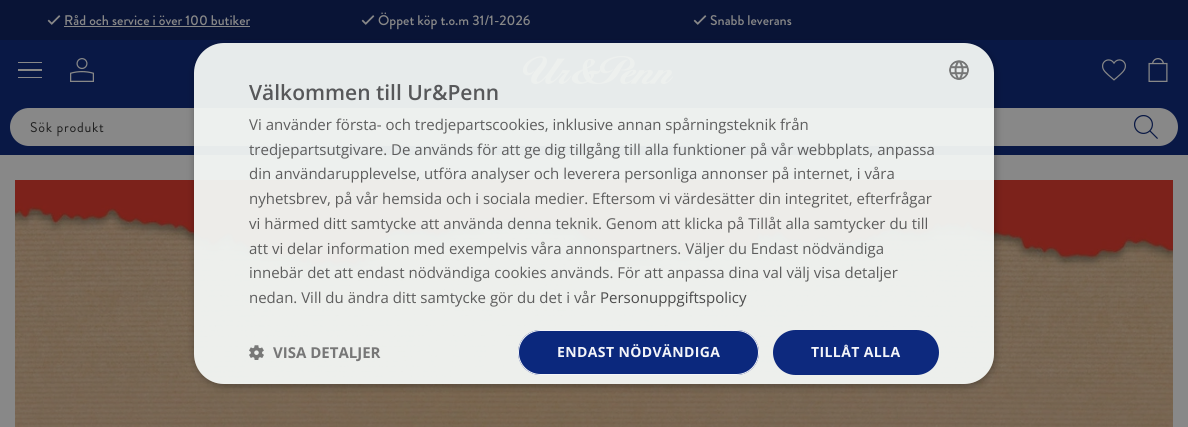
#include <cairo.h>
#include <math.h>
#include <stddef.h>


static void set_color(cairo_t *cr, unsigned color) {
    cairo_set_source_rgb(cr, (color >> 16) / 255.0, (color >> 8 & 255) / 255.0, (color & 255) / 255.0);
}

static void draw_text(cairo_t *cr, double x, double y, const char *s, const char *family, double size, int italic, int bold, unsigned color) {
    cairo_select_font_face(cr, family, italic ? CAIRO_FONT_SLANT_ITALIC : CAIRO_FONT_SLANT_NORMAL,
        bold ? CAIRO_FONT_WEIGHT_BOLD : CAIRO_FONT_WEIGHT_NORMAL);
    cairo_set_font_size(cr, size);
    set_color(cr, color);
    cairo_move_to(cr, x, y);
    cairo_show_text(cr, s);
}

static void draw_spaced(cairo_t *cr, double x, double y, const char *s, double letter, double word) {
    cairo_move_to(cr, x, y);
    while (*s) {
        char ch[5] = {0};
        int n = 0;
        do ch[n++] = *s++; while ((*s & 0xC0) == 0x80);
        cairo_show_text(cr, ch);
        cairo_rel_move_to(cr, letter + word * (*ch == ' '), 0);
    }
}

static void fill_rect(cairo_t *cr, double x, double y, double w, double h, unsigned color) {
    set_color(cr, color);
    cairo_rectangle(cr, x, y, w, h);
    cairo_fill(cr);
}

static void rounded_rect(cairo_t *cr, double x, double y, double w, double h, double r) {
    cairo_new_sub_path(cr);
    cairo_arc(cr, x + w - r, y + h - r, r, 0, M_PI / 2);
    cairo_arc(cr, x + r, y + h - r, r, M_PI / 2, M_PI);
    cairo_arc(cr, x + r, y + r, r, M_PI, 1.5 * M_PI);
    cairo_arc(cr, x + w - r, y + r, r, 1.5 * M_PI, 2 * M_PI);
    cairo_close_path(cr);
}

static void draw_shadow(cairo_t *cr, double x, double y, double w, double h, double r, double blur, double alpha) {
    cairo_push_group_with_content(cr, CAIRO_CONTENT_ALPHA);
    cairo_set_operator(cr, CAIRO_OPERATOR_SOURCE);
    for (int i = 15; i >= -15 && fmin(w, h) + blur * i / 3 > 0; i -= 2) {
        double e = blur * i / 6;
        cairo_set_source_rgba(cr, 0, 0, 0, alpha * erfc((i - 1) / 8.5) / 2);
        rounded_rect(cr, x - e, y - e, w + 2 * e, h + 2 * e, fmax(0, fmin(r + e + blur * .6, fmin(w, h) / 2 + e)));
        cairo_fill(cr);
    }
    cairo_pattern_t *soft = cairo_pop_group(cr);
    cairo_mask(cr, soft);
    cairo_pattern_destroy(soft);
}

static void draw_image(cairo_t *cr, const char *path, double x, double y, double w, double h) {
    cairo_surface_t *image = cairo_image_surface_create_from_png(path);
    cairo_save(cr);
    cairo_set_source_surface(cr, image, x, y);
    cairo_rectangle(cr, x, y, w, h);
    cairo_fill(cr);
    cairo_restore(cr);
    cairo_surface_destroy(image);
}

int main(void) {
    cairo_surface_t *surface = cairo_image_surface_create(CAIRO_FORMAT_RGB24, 1188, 427);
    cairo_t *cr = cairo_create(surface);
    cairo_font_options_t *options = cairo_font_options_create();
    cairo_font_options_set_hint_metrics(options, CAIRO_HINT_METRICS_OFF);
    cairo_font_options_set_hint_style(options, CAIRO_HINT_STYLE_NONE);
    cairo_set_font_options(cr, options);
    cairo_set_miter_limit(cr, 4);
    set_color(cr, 0x888888);
    cairo_paint(cr);
    fill_rect(cr, 0, 0, 1188, 40, 0x091436);
    draw_image(cr, "assets/img1.png", 47, 15, 14, 10);
    draw_text(cr, 64, 25, "Råd och service i över 100 butiker", "Brandon Grotesque Medium", 14, 0, 0, 0x888888);
    fill_rect(cr, 64, 26, 186, 1, 0x888888);
    draw_image(cr, "assets/img1.png", 361, 15, 14, 10);
    draw_text(cr, 378, 25, "Öppet köp t.o.m 31/1-2026", "Brandon Grotesque Medium", 14, 0, 0, 0x888888);
    draw_image(cr, "assets/img1.png", 693, 15, 14, 10);
    draw_text(cr, 710, 25, "Snabb leverans", "Brandon Grotesque Medium", 14, 0, 0, 0x888888);
    fill_rect(cr, 0, 40, 1188, 115, 0x091845);
    fill_rect(cr, 18, 62, 24, 1, 0x888888);
    fill_rect(cr, 18, 69, 24, 2, 0x888888);
    fill_rect(cr, 18, 77, 24, 1, 0x888888);
    draw_image(cr, "assets/img2.png", 70, 58, 24, 24);
    draw_image(cr, "assets/img3.png", 523, 56, 150, 28);
    draw_image(cr, "assets/img4.png", 1102, 59, 24, 22);
    draw_image(cr, "assets/img5.png", 1148, 58, 20, 24);
    rounded_rect(cr, 10, 108, 1168, 38, 19);
    cairo_fill(cr);
    cairo_select_font_face(cr, "Brandon Grotesque", CAIRO_FONT_SLANT_NORMAL, CAIRO_FONT_WEIGHT_NORMAL);
    set_color(cr, 0x1D1D1D);
    draw_spaced(cr, 30, 132, "Sök produkt", 0.75, 0);
    draw_image(cr, "assets/img6.png", 1134, 115, 24, 24);
    draw_image(cr, "assets/img9.png", 15, 180, 1158, 247);
    cairo_save(cr);
    cairo_set_fill_rule(cr, CAIRO_FILL_RULE_EVEN_ODD);
    cairo_new_path(cr);
    cairo_move_to(cr, 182, 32);
    cairo_line_to(cr, 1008, 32);
    cairo_line_to(cr, 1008, 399);
    cairo_line_to(cr, 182, 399);
    cairo_close_path(cr);
    cairo_move_to(cr, 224, 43);
    cairo_line_to(cr, 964, 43);
    cairo_curve_to(cr, 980.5, 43, 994, 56.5, 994, 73);
    cairo_line_to(cr, 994, 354);
    cairo_curve_to(cr, 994, 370.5, 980.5, 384, 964, 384);
    cairo_line_to(cr, 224, 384);
    cairo_curve_to(cr, 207.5, 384, 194, 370.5, 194, 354);
    cairo_line_to(cr, 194, 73);
    cairo_curve_to(cr, 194, 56.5, 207.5, 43, 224, 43);
    cairo_close_path(cr);
    cairo_clip(cr);
    set_color(cr, 0x000000);
    draw_shadow(cr, 195, 45, 800, 341, 30, 4, 0.33);
    cairo_restore(cr);
    cairo_set_source_rgba(cr, 0.953, 0.965, 0.957, 0.95);
    rounded_rect(cr, 194, 43, 800, 341, 30);
    cairo_fill(cr);
    draw_image(cr, "assets/img7.png", 949, 60, 20, 20);
    draw_text(cr, 249, 100, "Välkommen till Ur&Penn", "Open Sans SemiBold", 21, 0, 0, 0x57585A);
    draw_text(cr, 249, 130, "Vi använder första- och tredjepartscookies, inklusive annan spårningsteknik från", "Open Sans", 15, 0, 0, 0x5D5D5D);
    draw_text(cr, 249, 155, "tredjepartsutgivare. De används för att ge dig tillgång till alla funktioner på vår webbplats, anpassa", "Open Sans", 15, 0, 0, 0x5D5D5D);
    draw_text(cr, 249, 179, "din användarupplevelse, utföra analyser och leverera personliga annonser på internet, i våra", "Open Sans", 15, 0, 0, 0x5D5D5D);
    draw_text(cr, 249, 204, "nyhetsbrev, på vår hemsida och i sociala medier. Eftersom vi värdesätter din integritet, efterfrågar", "Open Sans", 15, 0, 0, 0x5D5D5D);
    draw_text(cr, 249, 229, "vi härmed ditt samtycke att använda denna teknik. Genom att klicka på Tillåt alla samtycker du till", "Open Sans", 15, 0, 0, 0x5D5D5D);
    draw_text(cr, 249, 254, "att vi delar information med exempelvis våra annonspartners. Väljer du Endast nödvändiga", "Open Sans", 15, 0, 0, 0x5D5D5D);
    draw_text(cr, 249, 278, "innebär det att endast nödvändiga cookies används. För att anpassa dina val välj visa detaljer", "Open Sans", 15, 0, 0, 0x5D5D5D);
    draw_text(cr, 249, 303, "nedan. Vill du ändra ditt samtycke gör du det i vår", "Open Sans", 15, 0, 0, 0x5D5D5D);
    draw_text(cr, 600, 303, "Personuppgiftspolicy", "Open Sans", 15, 0, 0, 0x4C4C4C);
    draw_image(cr, "assets/img8.png", 249, 345, 15, 15);
    draw_text(cr, 273, 358, "VISA DETALJER", "Open Sans", 15, 0, 1, 0x777777);
    cairo_set_source_rgba(cr, 0.004, 0.122, 0.471, 0.95);
    rounded_rect(cr, 518, 330, 241, 45, 22.5);
    cairo_fill(cr);
    rounded_rect(cr, 518.5, 330.5, 240, 44, 22);
    cairo_set_source_rgba(cr, 1, 1, 1, 0.95);
    cairo_set_line_width(cr, 1);
    cairo_stroke(cr);
    cairo_set_font_size(cr, 14);
    set_color(cr, 0xF3F4F9);
    draw_spaced(cr, 557, 357, "ENDAST NÖDVÄNDIGA", 0.4, 0);
    set_color(cr, 0x0D297E);
    rounded_rect(cr, 773, 330, 166, 45, 22.5);
    cairo_fill(cr);
    set_color(cr, 0xF3F4F9);
    draw_spaced(cr, 811, 357, "TILLÅT ALLA", 0.4, 0);
    cairo_surface_write_to_png(surface, "output.png");
    cairo_font_options_destroy(options);
    cairo_destroy(cr);
    cairo_surface_destroy(surface);
    return 0;
}
